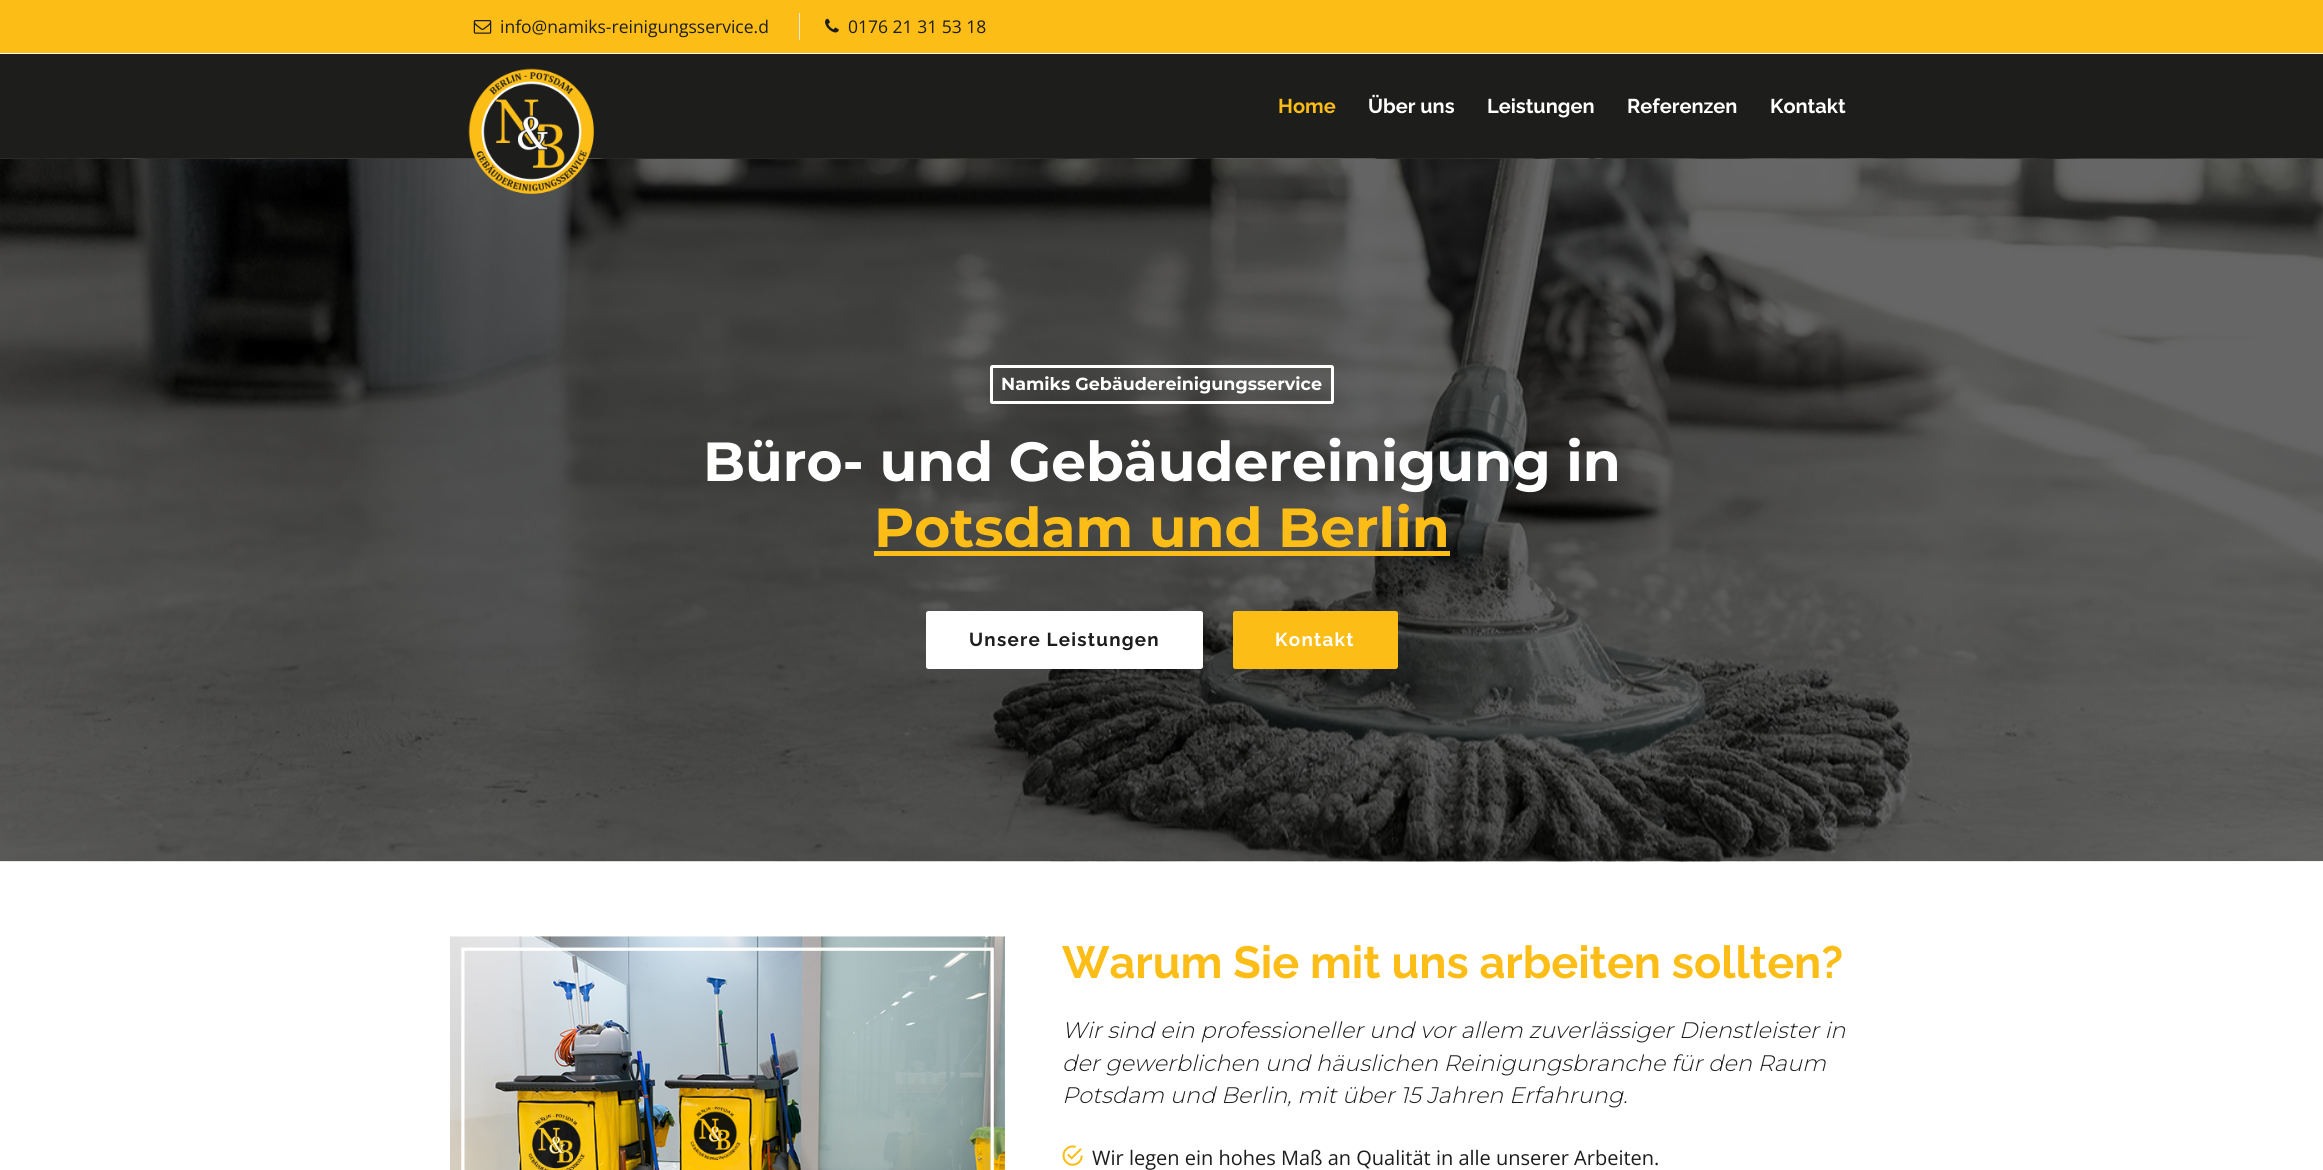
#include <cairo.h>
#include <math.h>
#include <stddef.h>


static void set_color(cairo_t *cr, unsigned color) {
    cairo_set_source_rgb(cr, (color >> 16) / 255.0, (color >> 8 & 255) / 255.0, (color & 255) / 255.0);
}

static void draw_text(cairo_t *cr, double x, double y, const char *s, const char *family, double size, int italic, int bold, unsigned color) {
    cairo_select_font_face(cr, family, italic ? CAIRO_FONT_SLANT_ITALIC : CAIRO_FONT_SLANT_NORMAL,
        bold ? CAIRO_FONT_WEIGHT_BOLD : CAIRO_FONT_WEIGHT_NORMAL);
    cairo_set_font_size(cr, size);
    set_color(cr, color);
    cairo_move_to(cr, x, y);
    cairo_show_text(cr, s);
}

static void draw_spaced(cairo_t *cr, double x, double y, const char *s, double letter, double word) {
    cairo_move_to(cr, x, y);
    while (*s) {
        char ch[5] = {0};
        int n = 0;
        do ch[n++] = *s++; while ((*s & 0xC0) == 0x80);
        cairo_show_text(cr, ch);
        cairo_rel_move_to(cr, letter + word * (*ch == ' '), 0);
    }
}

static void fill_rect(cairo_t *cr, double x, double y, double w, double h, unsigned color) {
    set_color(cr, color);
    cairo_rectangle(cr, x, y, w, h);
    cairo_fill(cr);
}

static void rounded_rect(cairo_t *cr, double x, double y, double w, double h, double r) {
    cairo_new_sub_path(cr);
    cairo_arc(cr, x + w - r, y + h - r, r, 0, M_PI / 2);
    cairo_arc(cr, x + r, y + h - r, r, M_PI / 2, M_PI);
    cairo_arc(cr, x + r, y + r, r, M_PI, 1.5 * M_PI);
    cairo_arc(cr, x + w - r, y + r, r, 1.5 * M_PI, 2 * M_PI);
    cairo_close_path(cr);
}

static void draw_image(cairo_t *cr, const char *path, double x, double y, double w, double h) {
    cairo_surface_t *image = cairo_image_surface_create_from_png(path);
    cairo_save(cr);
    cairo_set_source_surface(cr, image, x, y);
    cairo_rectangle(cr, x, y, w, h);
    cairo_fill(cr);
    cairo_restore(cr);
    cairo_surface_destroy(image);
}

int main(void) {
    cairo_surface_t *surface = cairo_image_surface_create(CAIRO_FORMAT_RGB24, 2323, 1170);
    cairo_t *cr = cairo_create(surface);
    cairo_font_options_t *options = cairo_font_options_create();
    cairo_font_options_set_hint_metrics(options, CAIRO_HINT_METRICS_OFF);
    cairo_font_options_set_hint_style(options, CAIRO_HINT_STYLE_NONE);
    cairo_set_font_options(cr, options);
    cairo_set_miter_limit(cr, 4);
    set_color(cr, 0xFFFFFF);
    cairo_paint(cr);
    fill_rect(cr, 0, 0, 2323, 53, 0xFCBD16);
    draw_image(cr, "assets/img1.png", 473, 20, 19, 14);
    draw_text(cr, 500, 33, "info@namiks-reinigungsservice.d", "Open Sans", 17.5, 0, 0, 0x1D1D1D);
    fill_rect(cr, 799, 13, 1, 27, 0xE9E9E9);
    draw_image(cr, "assets/img2.png", 825, 18, 14, 15);
    draw_text(cr, 848, 33, "0176 21 31 53 18", "Open Sans", 17.5, 0, 0, 0x1D1D1D);
    fill_rect(cr, 0, 54, 2323, 105, 0x1D1D1B);
    draw_image(cr, "assets/img4.png", 0, 158, 2323, 704);
    draw_image(cr, "assets/img5.png", 0, 159, 2323, 703);
    cairo_set_source_rgba(cr, 0, 0, 0, 0.6);
    cairo_rectangle(cr, 0, 159, 2323, 702);
    cairo_fill(cr);
    draw_image(cr, "assets/img3.png", 468, 68, 126, 126);
    draw_text(cr, 1278, 113, "Home", "Raleway", 20, 0, 1, 0xFCBD16);
    draw_text(cr, 1368, 113, "Über uns", "Raleway", 20, 0, 1, 0xFFFFFF);
    draw_text(cr, 1487, 113, "Leistungen", "Raleway", 20, 0, 1, 0xFFFFFF);
    draw_text(cr, 1627, 113, "Referenzen", "Raleway", 20, 0, 1, 0xFFFFFF);
    draw_text(cr, 1770, 113, "Kontakt", "Raleway", 20, 0, 1, 0xFFFFFF);
    rounded_rect(cr, 991.5, 366.5, 341, 36, 1);
    cairo_set_line_width(cr, 3);
    cairo_stroke(cr);
    draw_text(cr, 1001, 390, "Namiks Gebäudereinigungsservice", "Montserrat", 17.5, 0, 1, 0xFFFFFF);
    draw_text(cr, 703, 481, "Büro- und Gebäudereinigung in", "Montserrat", 55, 0, 1, 0xFFFFFF);
    draw_text(cr, 874, 547, "Potsdam und Berlin", "Montserrat", 55, 0, 1, 0xFCBD16);
    fill_rect(cr, 874, 551, 576, 5, 0xFCBD16);
    set_color(cr, 0xFFFFFF);
    rounded_rect(cr, 927.5, 612.5, 274, 55, 1);
    cairo_fill_preserve(cr);
    cairo_stroke(cr);
    cairo_select_font_face(cr, "Raleway", CAIRO_FONT_SLANT_NORMAL, CAIRO_FONT_WEIGHT_BOLD);
    cairo_set_font_size(cr, 18.75);
    set_color(cr, 0x1D1D1D);
    draw_spaced(cr, 969, 646, "Unsere Leistungen", 1.25, 0);
    set_color(cr, 0xFCBD16);
    rounded_rect(cr, 1234.5, 612.5, 162, 55, 1);
    cairo_fill_preserve(cr);
    cairo_stroke(cr);
    set_color(cr, 0xFFFFFF);
    draw_spaced(cr, 1275, 646, "Kontakt", 1.25, 0);
    draw_image(cr, "assets/img6.png", 450, 936, 555, 234);
    draw_text(cr, 1062, 978, "Warum Sie mit uns arbeiten sollten?", "Raleway", 45, 0, 1, 0xFCBD16);
    draw_text(cr, 1062, 1038, "Wir sind ein professioneller und vor allem zuverlässiger Dienstleister in", "Montserrat Light", 22.5, 1, 0, 0x1D1D1D);
    draw_text(cr, 1062, 1071, "der gewerblichen und häuslichen Reinigungsbranche für den Raum", "Montserrat Light", 22.5, 1, 0, 0x1D1D1D);
    draw_text(cr, 1062, 1103, "Potsdam und Berlin, mit über 15 Jahren Erfahrung.", "Montserrat Light", 22.5, 1, 0, 0x1D1D1D);
    draw_image(cr, "assets/img7.png", 1062, 1145, 21, 21);
    draw_text(cr, 1092, 1165, "Wir legen ein hohes Maß an Qualität in alle unserer Arbeiten.", "Open Sans", 20, 0, 0, 0x1D1D1D);
    cairo_surface_write_to_png(surface, "output.png");
    cairo_font_options_destroy(options);
    cairo_destroy(cr);
    cairo_surface_destroy(surface);
    return 0;
}
